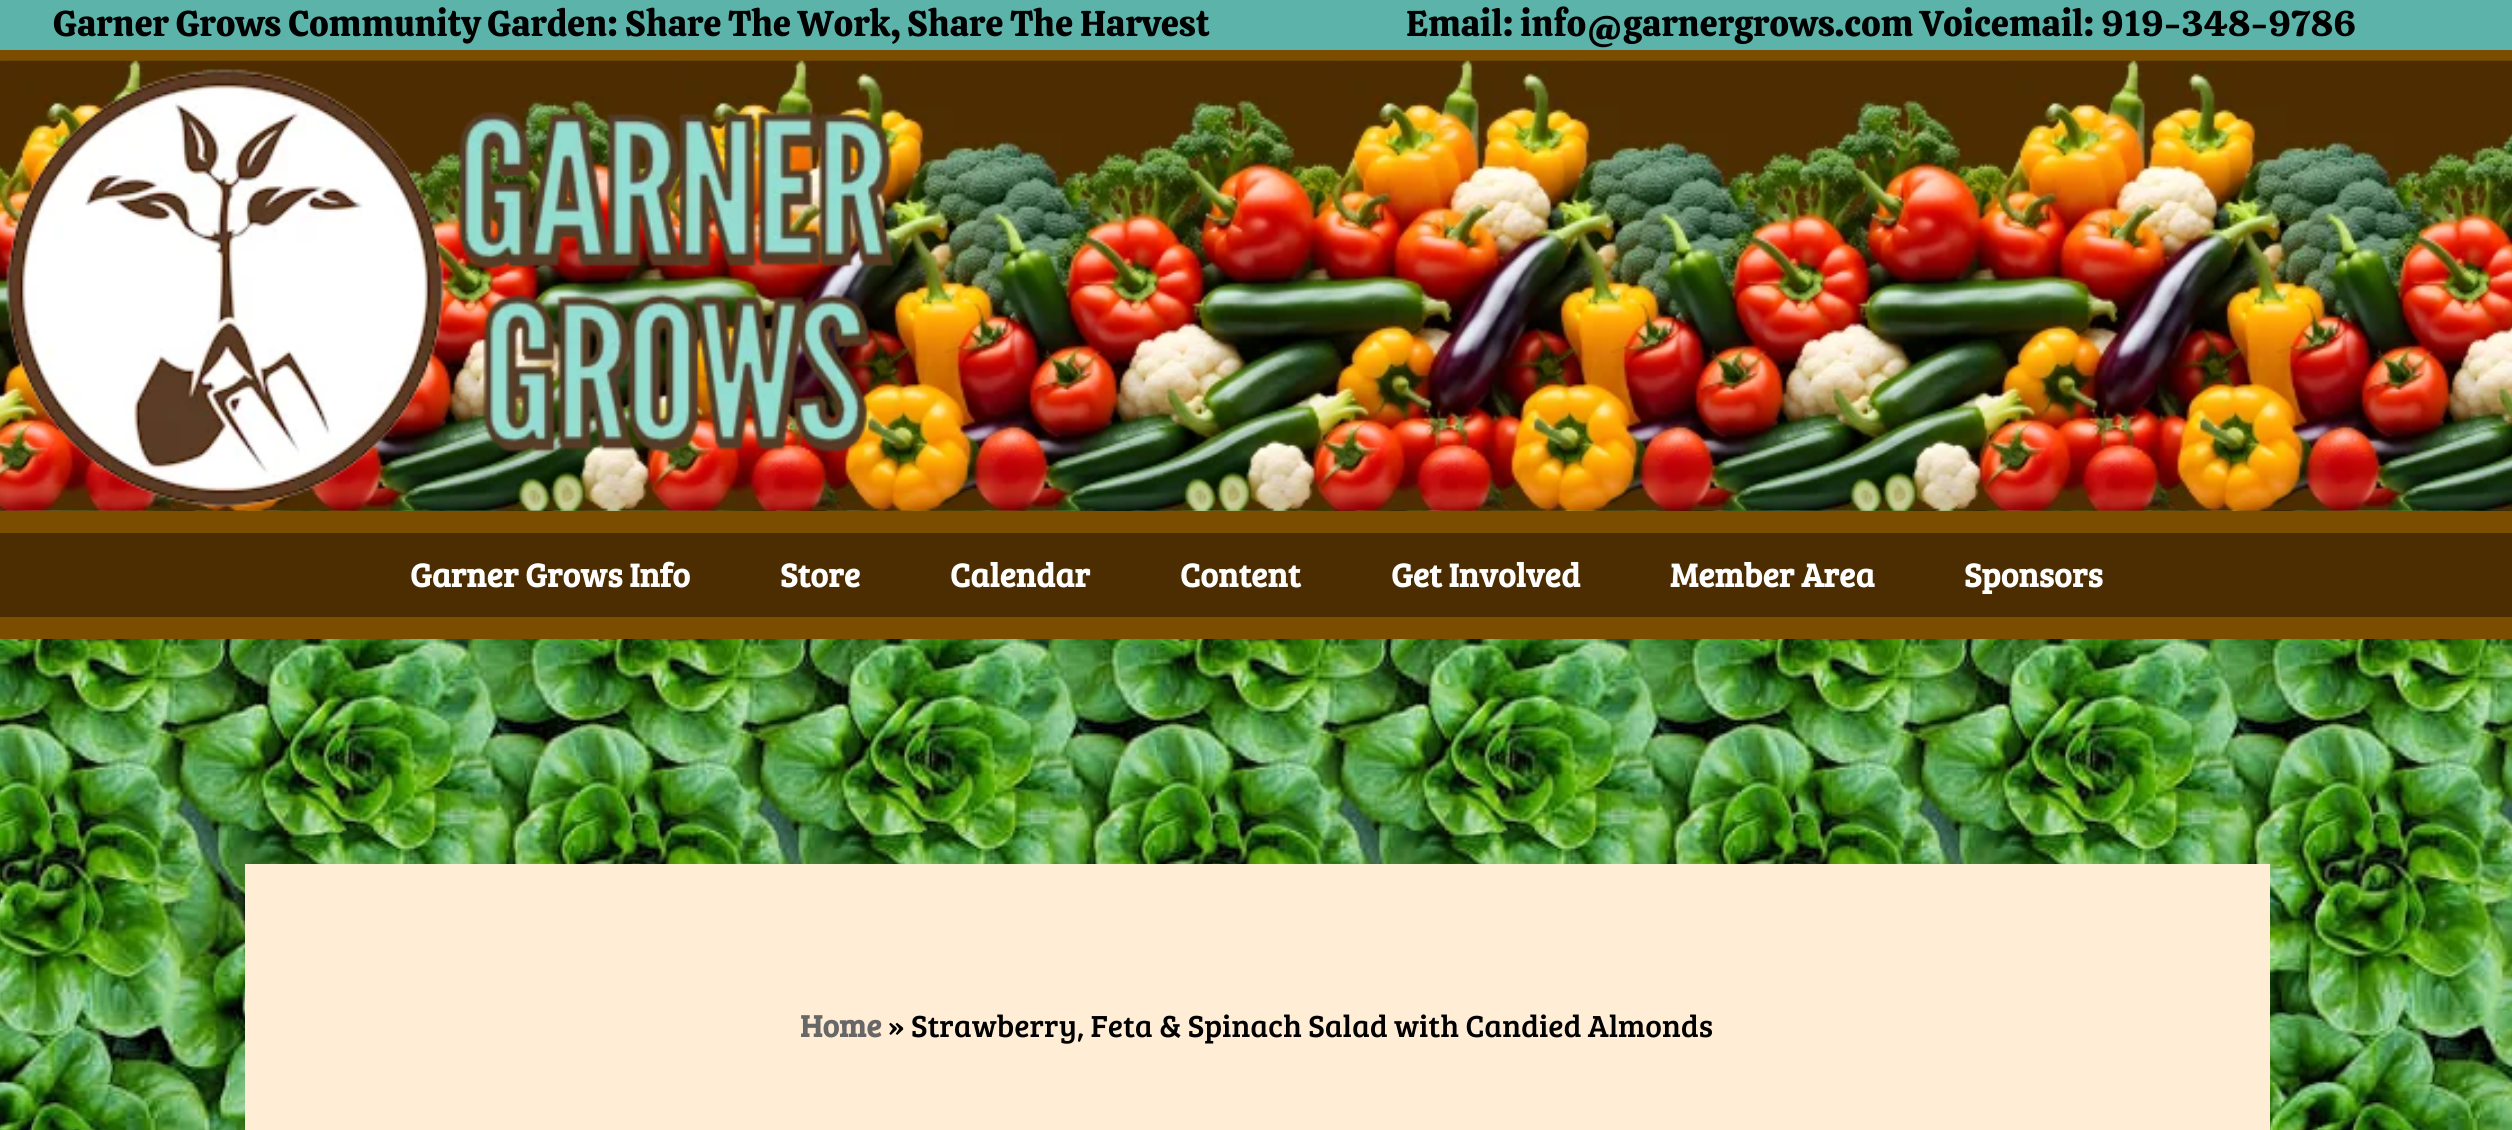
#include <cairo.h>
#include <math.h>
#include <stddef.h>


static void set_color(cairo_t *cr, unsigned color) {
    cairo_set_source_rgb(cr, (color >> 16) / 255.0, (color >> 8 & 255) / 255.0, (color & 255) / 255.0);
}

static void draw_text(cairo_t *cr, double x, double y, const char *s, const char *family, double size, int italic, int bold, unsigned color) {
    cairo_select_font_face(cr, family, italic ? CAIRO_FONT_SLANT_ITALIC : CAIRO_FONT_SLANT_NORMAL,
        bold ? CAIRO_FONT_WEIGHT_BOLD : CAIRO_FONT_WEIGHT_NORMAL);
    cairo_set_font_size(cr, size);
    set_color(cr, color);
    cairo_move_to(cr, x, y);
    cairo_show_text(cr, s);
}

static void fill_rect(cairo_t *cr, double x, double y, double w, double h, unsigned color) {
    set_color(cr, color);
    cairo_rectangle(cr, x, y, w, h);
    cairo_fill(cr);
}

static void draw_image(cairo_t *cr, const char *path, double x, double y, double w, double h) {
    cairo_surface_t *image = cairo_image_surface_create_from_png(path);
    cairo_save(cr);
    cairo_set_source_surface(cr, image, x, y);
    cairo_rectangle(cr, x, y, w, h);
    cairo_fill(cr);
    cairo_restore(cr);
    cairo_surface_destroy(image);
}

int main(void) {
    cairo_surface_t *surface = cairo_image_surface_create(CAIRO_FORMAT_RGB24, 2512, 1130);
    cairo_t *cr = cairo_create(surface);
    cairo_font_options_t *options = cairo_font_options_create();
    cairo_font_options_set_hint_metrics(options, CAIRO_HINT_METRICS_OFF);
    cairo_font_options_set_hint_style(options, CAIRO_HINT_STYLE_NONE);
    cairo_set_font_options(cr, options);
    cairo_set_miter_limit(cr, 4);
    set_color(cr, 0xFFFFFF);
    cairo_paint(cr);
    draw_image(cr, "assets/img1.png", 0, 510, 2512, 620);
    fill_rect(cr, 0, 0, 2512, 50, 0x5BB3A9);
    fill_rect(cr, 0, 50, 2512, 11, 0x7A4D00);
    draw_text(cr, 53, 36, "Garner Grows Community Garden: Share The Work, Share The Harvest", "Calistoga", 36, 0, 0, 0x000000);
    draw_text(cr, 1406, 36, "Email: info@garnergrows.com Voicemail: 919-348-9786", "Calistoga", 36, 0, 0, 0x000000);
    draw_image(cr, "assets/img2.png", 0, 60, 2512, 451);
    draw_image(cr, "assets/img3.png", 6, 69, 438, 438);
    draw_image(cr, "assets/img4.png", 458, 111, 436, 342);
    fill_rect(cr, 0, 533, 2512, 84, 0x4C2C01);
    fill_rect(cr, 0, 511, 2512, 22, 0x7A4D00);
    fill_rect(cr, 0, 617, 2512, 22, 0x7A4D00);
    draw_text(cr, 410, 587, "Garner Grows Info", "Bree Serif", 33.75, 0, 1, 0xFFFFFF);
    draw_text(cr, 780, 587, "Store", "Bree Serif", 33.75, 0, 1, 0xFFFFFF);
    draw_text(cr, 950, 587, "Calendar", "Bree Serif", 33.75, 0, 1, 0xFFFFFF);
    draw_text(cr, 1180, 587, "Content", "Bree Serif", 33.75, 0, 1, 0xFFFFFF);
    draw_text(cr, 1391, 587, "Get Involved", "Bree Serif", 33.75, 0, 1, 0xFFFFFF);
    draw_text(cr, 1670, 587, "Member Area", "Bree Serif", 33.75, 0, 1, 0xFFFFFF);
    draw_text(cr, 1964, 587, "Sponsors", "Bree Serif", 33.75, 0, 1, 0xFFFFFF);
    fill_rect(cr, 245, 864, 2025, 266, 0xFFEDD5);
    draw_text(cr, 800, 1037, "Home", "Bree Serif", 31.5, 0, 1, 0x676767);
    draw_text(cr, 888, 1037, "» Strawberry, Feta & Spinach Salad with Candied Almonds", "Bree Serif", 31.5, 0, 0, 0x000000);
    cairo_surface_write_to_png(surface, "output.png");
    cairo_font_options_destroy(options);
    cairo_destroy(cr);
    cairo_surface_destroy(surface);
    return 0;
}
